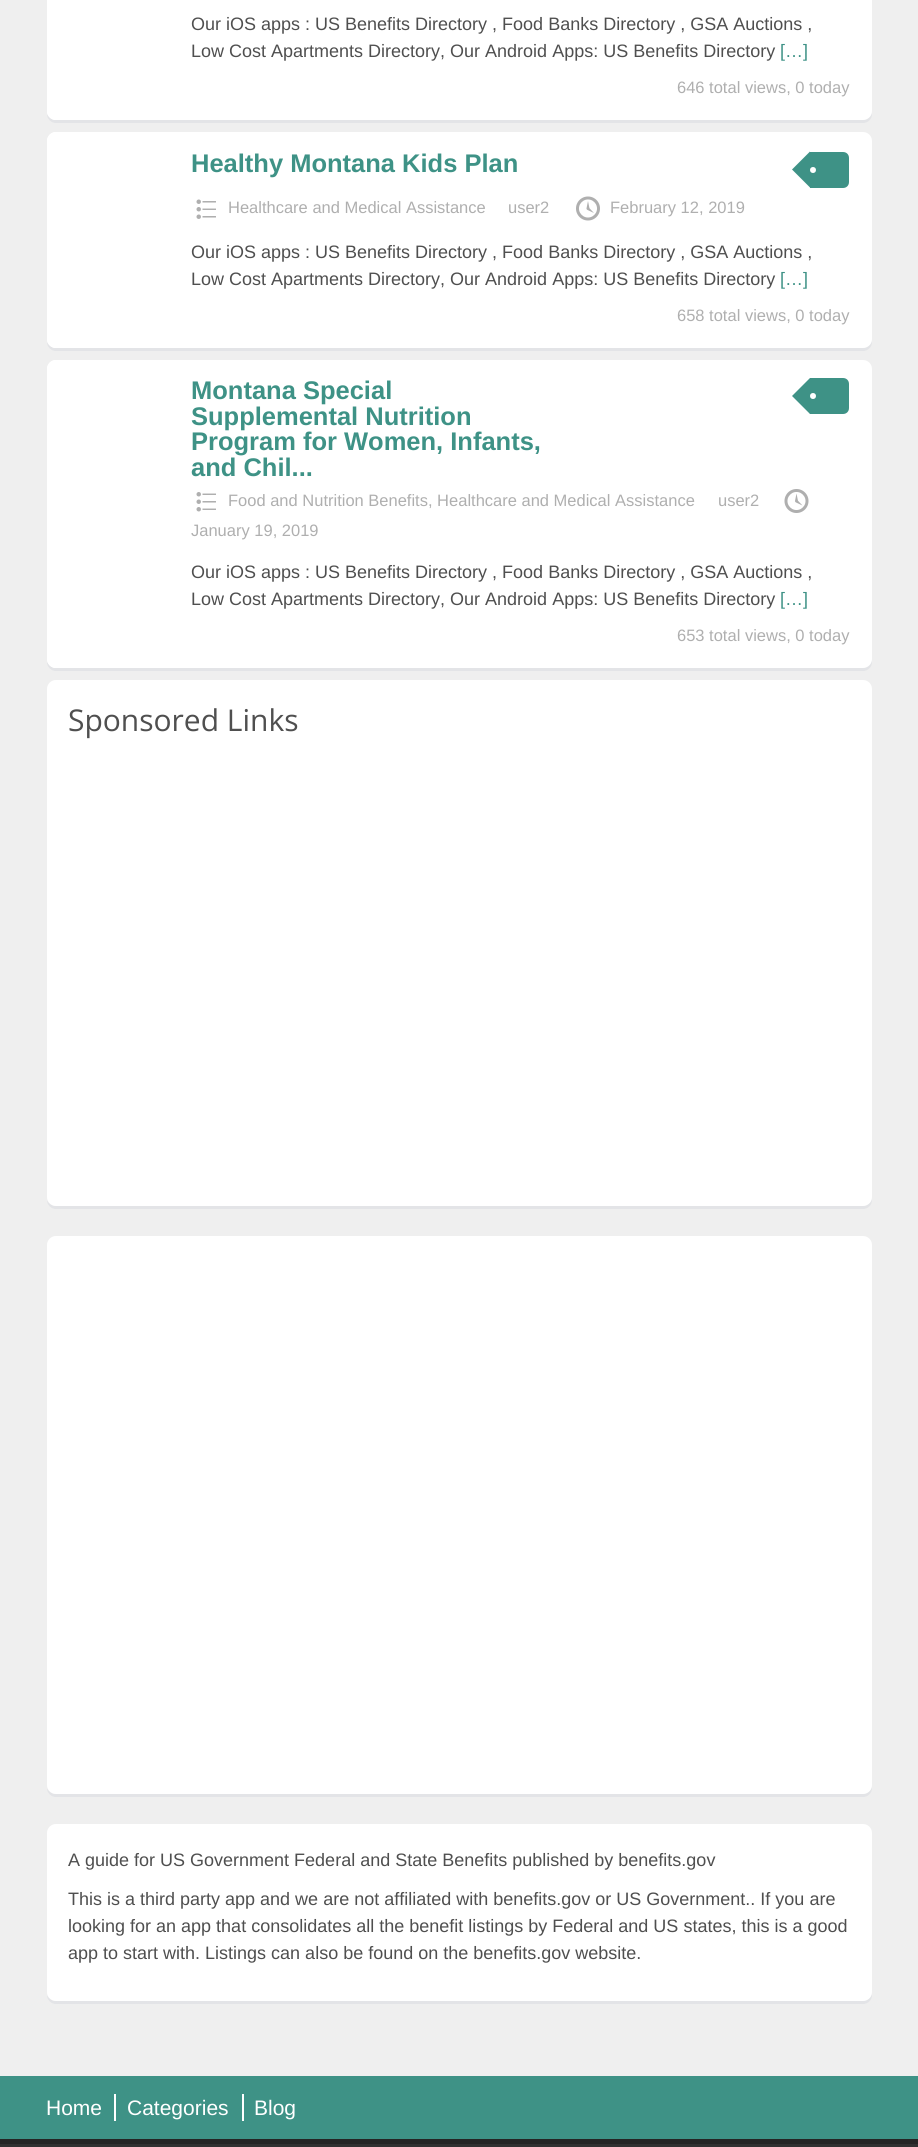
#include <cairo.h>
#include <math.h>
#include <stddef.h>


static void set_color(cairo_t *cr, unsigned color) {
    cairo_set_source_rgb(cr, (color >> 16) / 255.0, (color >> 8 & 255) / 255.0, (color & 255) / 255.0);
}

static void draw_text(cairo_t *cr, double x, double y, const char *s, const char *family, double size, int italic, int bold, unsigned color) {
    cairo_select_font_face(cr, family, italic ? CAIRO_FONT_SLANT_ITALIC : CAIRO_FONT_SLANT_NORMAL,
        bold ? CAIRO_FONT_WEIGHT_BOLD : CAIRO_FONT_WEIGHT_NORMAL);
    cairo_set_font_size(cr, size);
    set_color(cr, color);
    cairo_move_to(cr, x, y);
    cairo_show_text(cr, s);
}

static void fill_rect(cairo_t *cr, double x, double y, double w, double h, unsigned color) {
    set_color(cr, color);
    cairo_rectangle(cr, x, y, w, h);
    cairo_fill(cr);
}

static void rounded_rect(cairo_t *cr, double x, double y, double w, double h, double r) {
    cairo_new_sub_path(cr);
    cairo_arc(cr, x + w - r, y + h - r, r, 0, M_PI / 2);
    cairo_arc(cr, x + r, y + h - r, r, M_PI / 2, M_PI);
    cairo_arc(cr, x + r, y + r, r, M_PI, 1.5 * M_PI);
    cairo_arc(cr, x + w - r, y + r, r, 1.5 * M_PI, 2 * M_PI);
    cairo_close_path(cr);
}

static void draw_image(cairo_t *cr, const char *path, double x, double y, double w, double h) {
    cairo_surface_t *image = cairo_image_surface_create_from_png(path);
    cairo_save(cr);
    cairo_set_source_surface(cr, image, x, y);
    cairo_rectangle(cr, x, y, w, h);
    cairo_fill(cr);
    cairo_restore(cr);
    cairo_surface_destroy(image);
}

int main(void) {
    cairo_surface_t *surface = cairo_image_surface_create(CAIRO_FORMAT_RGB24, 918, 2147);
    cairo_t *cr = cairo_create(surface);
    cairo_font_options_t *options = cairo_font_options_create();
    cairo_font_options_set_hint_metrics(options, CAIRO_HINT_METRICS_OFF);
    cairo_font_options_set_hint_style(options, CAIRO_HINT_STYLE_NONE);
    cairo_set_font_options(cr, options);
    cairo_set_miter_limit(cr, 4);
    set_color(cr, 0xEFEFEF);
    cairo_paint(cr);
    set_color(cr, 0xE3E4E7);
    cairo_new_path(cr);
    cairo_move_to(cr, 47, 114);
    cairo_curve_to(cr, 47, 119, 51, 123, 56, 123);
    cairo_line_to(cr, 863, 123);
    cairo_curve_to(cr, 868, 123, 872, 119, 872, 114);
    cairo_line_to(cr, 872, -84);
    cairo_line_to(cr, 872, -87);
    cairo_line_to(cr, 872, 111);
    cairo_curve_to(cr, 872, 116, 867, 120, 862, 120);
    cairo_line_to(cr, 56, 120);
    cairo_curve_to(cr, 52, 120, 48, 117, 47, 114);
    cairo_close_path(cr);
    cairo_fill(cr);
    set_color(cr, 0xFFFFFF);
    rounded_rect(cr, 47, -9, 825, 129, 9);
    cairo_fill(cr);
    rounded_rect(cr, 47, -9, 822, 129, 9);
    cairo_fill(cr);
    draw_text(cr, 191, 30, "Our iOS apps : US Benefits Directory , Food Banks Directory , GSA Auctions ,", "Liberation Sans", 18, 0, 0, 0x4F4F4F);
    draw_text(cr, 191, 57, "Low Cost Apartments Directory, Our Android Apps: US Benefits Directory", "Liberation Sans", 18, 0, 0, 0x4F4F4F);
    draw_text(cr, 780, 57, "[…]", "Liberation Sans", 18, 0, 0, 0x3E9286);
    draw_text(cr, 677, 93, "646 total views, 0 today", "Liberation Sans", 16.5, 0, 0, 0xAFAFAF);
    set_color(cr, 0xE3E4E7);
    cairo_new_path(cr);
    cairo_move_to(cr, 47, 342);
    cairo_curve_to(cr, 47, 347, 51, 351, 56, 351);
    cairo_line_to(cr, 863, 351);
    cairo_curve_to(cr, 868, 351, 872, 347, 872, 342);
    cairo_line_to(cr, 872, 144);
    cairo_line_to(cr, 872, 141);
    cairo_line_to(cr, 872, 339);
    cairo_curve_to(cr, 872, 344, 867, 348, 862, 348);
    cairo_line_to(cr, 56, 348);
    cairo_curve_to(cr, 52, 348, 48, 345, 47, 342);
    cairo_close_path(cr);
    cairo_fill(cr);
    set_color(cr, 0xFFFFFF);
    rounded_rect(cr, 47, 132, 825, 216, 9);
    cairo_fill(cr);
    rounded_rect(cr, 47, 132, 822, 216, 9);
    cairo_fill(cr);
    draw_text(cr, 191, 172, "Healthy Montana Kids Plan", "Liberation Sans", 25.5, 0, 1, 0x3E9286);
    cairo_new_path(cr);
    cairo_move_to(cr, 810, 152);
    cairo_line_to(cr, 843, 152);
    cairo_curve_to(cr, 846.5, 152, 849, 154.5, 849, 158);
    cairo_line_to(cr, 849, 182);
    cairo_curve_to(cr, 849, 185.5, 846.5, 188, 843, 188);
    cairo_line_to(cr, 810, 188);
    cairo_close_path(cr);
    cairo_fill(cr);
    cairo_new_path(cr);
    cairo_move_to(cr, 810, 151.5);
    cairo_line_to(cr, 810, 187.5);
    cairo_line_to(cr, 792, 169.5);
    cairo_close_path(cr);
    cairo_fill(cr);
    set_color(cr, 0xFFFFFF);
    cairo_arc(cr, 813, 170, 3, 0, 2 * M_PI);
    cairo_fill(cr);
    draw_image(cr, "assets/img1.png", 196, 199, 20, 20);
    draw_text(cr, 228, 213, "Healthcare and Medical Assistance", "Liberation Sans", 16.5, 0, 0, 0xAFAFAF);
    draw_text(cr, 508, 213, "user2", "Liberation Sans", 16.5, 0, 0, 0xAFAFAF);
    draw_image(cr, "assets/img2.png", 576, 196, 24, 25);
    draw_text(cr, 610, 213, "February 12, 2019", "Liberation Sans", 16.5, 0, 0, 0xAFAFAF);
    draw_text(cr, 191, 258, "Our iOS apps : US Benefits Directory , Food Banks Directory , GSA Auctions ,", "Liberation Sans", 18, 0, 0, 0x4F4F4F);
    draw_text(cr, 191, 285, "Low Cost Apartments Directory, Our Android Apps: US Benefits Directory", "Liberation Sans", 18, 0, 0, 0x4F4F4F);
    draw_text(cr, 780, 285, "[…]", "Liberation Sans", 18, 0, 0, 0x3E9286);
    draw_text(cr, 677, 321, "658 total views, 0 today", "Liberation Sans", 16.5, 0, 0, 0xAFAFAF);
    set_color(cr, 0xE3E4E7);
    cairo_new_path(cr);
    cairo_move_to(cr, 47, 661);
    cairo_line_to(cr, 47, 662);
    cairo_curve_to(cr, 47, 667, 51, 671, 56, 671);
    cairo_line_to(cr, 863, 671);
    cairo_curve_to(cr, 868, 671, 872, 667, 872, 662);
    cairo_line_to(cr, 872, 372);
    cairo_line_to(cr, 872, 369);
    cairo_line_to(cr, 872, 658);
    cairo_curve_to(cr, 872, 663, 867, 668, 862, 668);
    cairo_line_to(cr, 56, 668);
    cairo_curve_to(cr, 52, 668, 48, 665, 47, 661);
    cairo_close_path(cr);
    cairo_fill(cr);
    set_color(cr, 0xFFFFFF);
    rounded_rect(cr, 47, 360, 825, 308, 9);
    cairo_fill(cr);
    rounded_rect(cr, 47, 360, 822, 308, 9);
    cairo_fill(cr);
    draw_text(cr, 191, 399, "Montana Special", "Liberation Sans", 25.5, 0, 1, 0x3E9286);
    draw_text(cr, 191, 425, "Supplemental Nutrition", "Liberation Sans", 25.5, 0, 1, 0x3E9286);
    draw_text(cr, 191, 450, "Program for Women, Infants,", "Liberation Sans", 25.5, 0, 1, 0x3E9286);
    draw_text(cr, 191, 476, "and Chil...", "Liberation Sans", 25.5, 0, 1, 0x3E9286);
    cairo_new_path(cr);
    cairo_move_to(cr, 810, 378);
    cairo_line_to(cr, 843, 378);
    cairo_curve_to(cr, 846.5, 378, 849, 380.5, 849, 384);
    cairo_line_to(cr, 849, 408);
    cairo_curve_to(cr, 849, 411.5, 846.5, 414, 843, 414);
    cairo_line_to(cr, 810, 414);
    cairo_close_path(cr);
    cairo_fill(cr);
    cairo_new_path(cr);
    cairo_move_to(cr, 810, 378);
    cairo_line_to(cr, 810, 414);
    cairo_line_to(cr, 792, 396);
    cairo_close_path(cr);
    cairo_fill(cr);
    set_color(cr, 0xFFFFFF);
    cairo_arc(cr, 813, 396, 3, 0, 2 * M_PI);
    cairo_fill(cr);
    draw_image(cr, "assets/img3.png", 196, 492, 20, 20);
    draw_text(cr, 228, 506, "Food and Nutrition Benefits, Healthcare and Medical Assistance", "Liberation Sans", 16.5, 0, 0, 0xAFAFAF);
    draw_text(cr, 718, 506, "user2", "Liberation Sans", 16.5, 0, 0, 0xAFAFAF);
    draw_image(cr, "assets/img4.png", 784, 489, 25, 24);
    draw_text(cr, 191, 536, "January 19, 2019", "Liberation Sans", 16.5, 0, 0, 0xAFAFAF);
    draw_text(cr, 191, 578, "Our iOS apps : US Benefits Directory , Food Banks Directory , GSA Auctions ,", "Liberation Sans", 18, 0, 0, 0x4F4F4F);
    draw_text(cr, 191, 605, "Low Cost Apartments Directory, Our Android Apps: US Benefits Directory", "Liberation Sans", 18, 0, 0, 0x4F4F4F);
    draw_text(cr, 780, 605, "[…]", "Liberation Sans", 18, 0, 0, 0x3E9286);
    draw_text(cr, 677, 641, "653 total views, 0 today", "Liberation Sans", 16.5, 0, 0, 0xAFAFAF);
    set_color(cr, 0xE3E4E7);
    cairo_new_path(cr);
    cairo_move_to(cr, 47, 1200);
    cairo_curve_to(cr, 47, 1205, 51, 1209, 56, 1209);
    cairo_line_to(cr, 863, 1209);
    cairo_curve_to(cr, 868, 1209, 872, 1205, 872, 1200);
    cairo_line_to(cr, 872, 692);
    cairo_line_to(cr, 872, 689);
    cairo_line_to(cr, 872, 1197);
    cairo_curve_to(cr, 872, 1202, 867, 1206, 862, 1206);
    cairo_line_to(cr, 56, 1206);
    cairo_curve_to(cr, 52, 1206, 48, 1203, 47, 1200);
    cairo_close_path(cr);
    cairo_fill(cr);
    set_color(cr, 0xFFFFFF);
    rounded_rect(cr, 47, 680, 825, 526, 9);
    cairo_fill(cr);
    draw_text(cr, 68, 731, "Sponsored Links", "Open Sans", 30, 0, 0, 0x4F4F4F);
    set_color(cr, 0xE3E4E7);
    cairo_new_path(cr);
    cairo_move_to(cr, 47, 1788);
    cairo_curve_to(cr, 47, 1793, 51, 1797, 56, 1797);
    cairo_line_to(cr, 863, 1797);
    cairo_curve_to(cr, 868, 1797, 872, 1793, 872, 1788);
    cairo_line_to(cr, 872, 1248);
    cairo_line_to(cr, 872, 1245);
    cairo_line_to(cr, 872, 1785);
    cairo_curve_to(cr, 872, 1790, 867, 1794, 862, 1794);
    cairo_line_to(cr, 56, 1794);
    cairo_curve_to(cr, 52, 1794, 48, 1791, 47, 1788);
    cairo_close_path(cr);
    cairo_fill(cr);
    set_color(cr, 0xFFFFFF);
    rounded_rect(cr, 47, 1236, 825, 558, 9);
    cairo_fill(cr);
    set_color(cr, 0xE3E4E7);
    cairo_new_path(cr);
    cairo_move_to(cr, 47, 1995);
    cairo_curve_to(cr, 47, 2000, 51, 2004, 56, 2004);
    cairo_line_to(cr, 863, 2004);
    cairo_curve_to(cr, 868, 2004, 872, 2000, 872, 1995);
    cairo_line_to(cr, 872, 1836);
    cairo_line_to(cr, 872, 1833);
    cairo_line_to(cr, 872, 1992);
    cairo_curve_to(cr, 872, 1997, 867, 2001, 862, 2001);
    cairo_line_to(cr, 56, 2001);
    cairo_curve_to(cr, 52, 2001, 48, 1998, 47, 1995);
    cairo_close_path(cr);
    cairo_fill(cr);
    set_color(cr, 0xFFFFFF);
    rounded_rect(cr, 47, 1824, 825, 177, 9);
    cairo_fill(cr);
    draw_text(cr, 68, 1866, "A guide for US Government Federal and State Benefits published by benefits.gov", "Liberation Sans", 18, 0, 0, 0x4F4F4F);
    draw_text(cr, 68, 1905, "This is a third party app and we are not affiliated with benefits.gov or US Government.. If you are", "Liberation Sans", 18, 0, 0, 0x4F4F4F);
    draw_text(cr, 68, 1932, "looking for an app that consolidates all the benefit listings by Federal and US states, this is a good", "Liberation Sans", 18, 0, 0, 0x4F4F4F);
    draw_text(cr, 68, 1959, "app to start with. Listings can also be found on the benefits.gov website.", "Liberation Sans", 18, 0, 0, 0x4F4F4F);
    fill_rect(cr, 0, 2144, 918, 3, 0x313131);
    fill_rect(cr, 0, 2076, 918, 63, 0x3E9286);
    draw_text(cr, 46, 2115, "Home", "Liberation Sans", 21, 0, 0, 0xFFFFFF);
    fill_rect(cr, 114, 2094, 2, 27, 0xFFFFFF);
    draw_text(cr, 127, 2115, "Categories", "Liberation Sans", 21, 0, 0, 0xFFFFFF);
    fill_rect(cr, 242, 2094, 2, 27, 0xFFFFFF);
    draw_text(cr, 254, 2115, "Blog", "Liberation Sans", 21, 0, 0, 0xFFFFFF);
    fill_rect(cr, 0, 2139, 918, 5, 0x252525);
    cairo_surface_write_to_png(surface, "output.png");
    cairo_font_options_destroy(options);
    cairo_destroy(cr);
    cairo_surface_destroy(surface);
    return 0;
}
